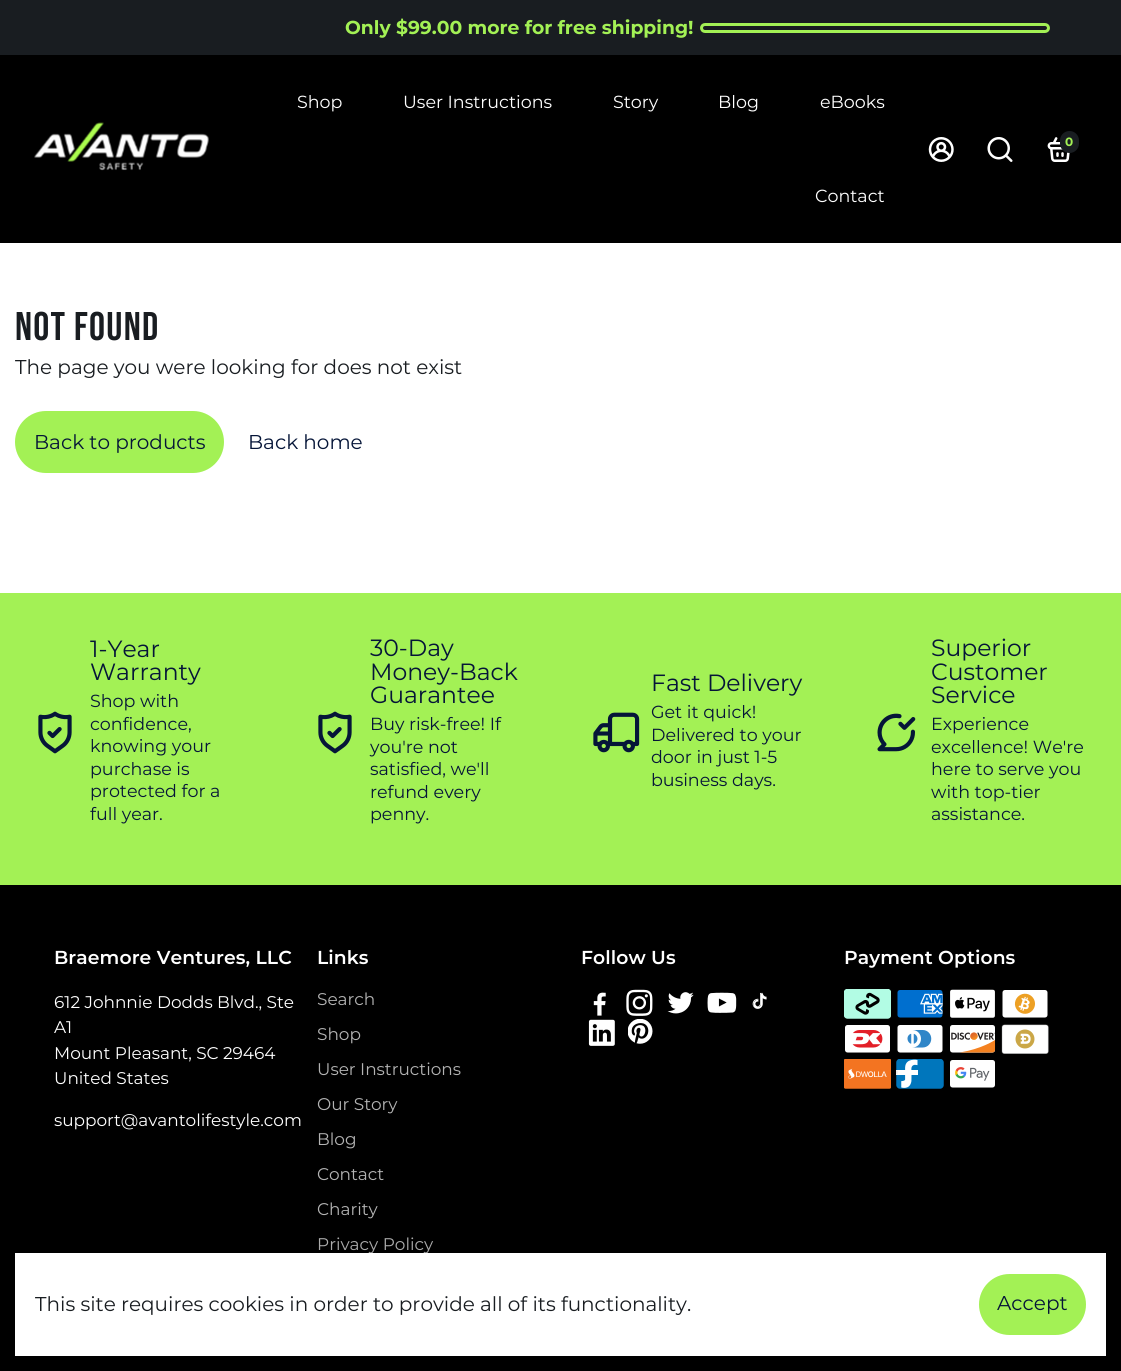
#include <cairo.h>
#include <math.h>
#include <stddef.h>


static void set_color(cairo_t *cr, unsigned color) {
    cairo_set_source_rgb(cr, (color >> 16) / 255.0, (color >> 8 & 255) / 255.0, (color & 255) / 255.0);
}

static void draw_text(cairo_t *cr, double x, double y, const char *s, const char *family, double size, int italic, int bold, unsigned color) {
    cairo_select_font_face(cr, family, italic ? CAIRO_FONT_SLANT_ITALIC : CAIRO_FONT_SLANT_NORMAL,
        bold ? CAIRO_FONT_WEIGHT_BOLD : CAIRO_FONT_WEIGHT_NORMAL);
    cairo_set_font_size(cr, size);
    set_color(cr, color);
    cairo_move_to(cr, x, y);
    cairo_show_text(cr, s);
}

static void draw_spaced(cairo_t *cr, double x, double y, const char *s, double letter, double word) {
    cairo_move_to(cr, x, y);
    while (*s) {
        char ch[5] = {0};
        int n = 0;
        do ch[n++] = *s++; while ((*s & 0xC0) == 0x80);
        cairo_show_text(cr, ch);
        cairo_rel_move_to(cr, letter + word * (*ch == ' '), 0);
    }
}

static void fill_rect(cairo_t *cr, double x, double y, double w, double h, unsigned color) {
    set_color(cr, color);
    cairo_rectangle(cr, x, y, w, h);
    cairo_fill(cr);
}

static void rounded_rect(cairo_t *cr, double x, double y, double w, double h, double r) {
    cairo_new_sub_path(cr);
    cairo_arc(cr, x + w - r, y + h - r, r, 0, M_PI / 2);
    cairo_arc(cr, x + r, y + h - r, r, M_PI / 2, M_PI);
    cairo_arc(cr, x + r, y + r, r, M_PI, 1.5 * M_PI);
    cairo_arc(cr, x + w - r, y + r, r, 1.5 * M_PI, 2 * M_PI);
    cairo_close_path(cr);
}

static void draw_shadow(cairo_t *cr, double x, double y, double w, double h, double r, double blur, double alpha) {
    cairo_push_group_with_content(cr, CAIRO_CONTENT_ALPHA);
    cairo_set_operator(cr, CAIRO_OPERATOR_SOURCE);
    for (int i = 15; i >= -15 && fmin(w, h) + blur * i / 3 > 0; i -= 2) {
        double e = blur * i / 6;
        cairo_set_source_rgba(cr, 0, 0, 0, alpha * erfc((i - 1) / 8.5) / 2);
        rounded_rect(cr, x - e, y - e, w + 2 * e, h + 2 * e, fmax(0, fmin(r + e + blur * .6, fmin(w, h) / 2 + e)));
        cairo_fill(cr);
    }
    cairo_pattern_t *soft = cairo_pop_group(cr);
    cairo_mask(cr, soft);
    cairo_pattern_destroy(soft);
}

static void draw_image(cairo_t *cr, const char *path, double x, double y, double w, double h) {
    cairo_surface_t *image = cairo_image_surface_create_from_png(path);
    cairo_save(cr);
    cairo_set_source_surface(cr, image, x, y);
    cairo_rectangle(cr, x, y, w, h);
    cairo_fill(cr);
    cairo_restore(cr);
    cairo_surface_destroy(image);
}

int main(void) {
    cairo_surface_t *surface = cairo_image_surface_create(CAIRO_FORMAT_RGB24, 1121, 1371);
    cairo_t *cr = cairo_create(surface);
    cairo_font_options_t *options = cairo_font_options_create();
    cairo_font_options_set_hint_metrics(options, CAIRO_HINT_METRICS_OFF);
    cairo_font_options_set_hint_style(options, CAIRO_HINT_STYLE_NONE);
    cairo_set_font_options(cr, options);
    cairo_set_miter_limit(cr, 4);
    set_color(cr, 0xFFFFFF);
    cairo_paint(cr);
    fill_rect(cr, 0, 0, 1121, 55, 0x191D21);
    draw_text(cr, 345, 34, "Only $99.00 more for free shipping!", "Montserrat", 18.75, 0, 1, 0xA3F155);
    rounded_rect(cr, 701.5, 24.5, 347, 7, 3.5);
    cairo_set_line_width(cr, 3);
    cairo_stroke(cr);
    fill_rect(cr, 0, 55, 1121, 188, 0x000000);
    draw_image(cr, "assets/img1.png", 34, 122, 175, 49);
    draw_text(cr, 297, 108, "Shop", "Montserrat", 17.5, 0, 0, 0xFFFFFF);
    draw_text(cr, 403, 108, "User Instructions", "Montserrat", 17.5, 0, 0, 0xFFFFFF);
    draw_text(cr, 613, 108, "Story", "Montserrat", 17.5, 0, 0, 0xFFFFFF);
    draw_text(cr, 718, 108, "Blog", "Montserrat", 17.5, 0, 0, 0xFFFFFF);
    draw_text(cr, 820, 108, "eBooks", "Montserrat", 17.5, 0, 0, 0xFFFFFF);
    draw_text(cr, 815, 202, "Contact", "Montserrat", 17.5, 0, 0, 0xFFFFFF);
    draw_image(cr, "assets/img2.png", 928, 137, 26, 25);
    draw_image(cr, "assets/img3.png", 987, 137, 26, 25);
    draw_image(cr, "assets/img4.png", 1047, 137, 23, 25);
    set_color(cr, 0x191D21);
    rounded_rect(cr, 1060, 131, 19, 22, 9.5);
    cairo_fill(cr);
    draw_text(cr, 1065, 146, "0", "Montserrat", 12, 0, 1, 0xA3F155);
    cairo_select_font_face(cr, "Bebas Neue", CAIRO_FONT_SLANT_NORMAL, CAIRO_FONT_WEIGHT_NORMAL);
    cairo_set_font_size(cr, 40);
    set_color(cr, 0x191D21);
    draw_spaced(cr, 15, 340, "Not found", 1.25, 0);
    draw_text(cr, 15, 374, "The page you were looking for does not exist", "Montserrat", 20, 0, 0, 0x191D21);
    set_color(cr, 0xA3F155);
    rounded_rect(cr, 15, 411, 209, 62, 31);
    cairo_fill(cr);
    draw_text(cr, 34, 449, "Back to products", "Montserrat", 20, 0, 0, 0x051538);
    draw_text(cr, 248, 449, "Back home", "Montserrat", 20, 0, 0, 0x051538);
    fill_rect(cr, 0, 593, 1121, 292, 0xA3F155);
    draw_image(cr, "assets/img5.png", 38, 711, 34, 43);
    draw_text(cr, 90, 657, "1-Year", "Montserrat", 23.5, 0, 0, 0x051538);
    draw_text(cr, 90, 680, "Warranty", "Montserrat", 23.5, 0, 0, 0x051538);
    draw_text(cr, 90, 707, "Shop with", "Montserrat", 17.5, 0, 0, 0x051538);
    draw_text(cr, 90, 730, "confidence,", "Montserrat", 17.5, 0, 0, 0x051538);
    draw_text(cr, 90, 752, "knowing your", "Montserrat", 17.5, 0, 0, 0x051538);
    draw_text(cr, 90, 775, "purchase is", "Montserrat", 17.5, 0, 0, 0x051538);
    draw_text(cr, 90, 797, "protected for a", "Montserrat", 17.5, 0, 0, 0x051538);
    draw_text(cr, 90, 820, "full year.", "Montserrat", 17.5, 0, 0, 0x051538);
    draw_image(cr, "assets/img5.png", 318, 711, 34, 43);
    draw_text(cr, 370, 656, "30-Day", "Montserrat", 23.5, 0, 0, 0x051538);
    draw_text(cr, 370, 680, "Money-Back", "Montserrat", 23.5, 0, 0, 0x051538);
    draw_text(cr, 370, 703, "Guarantee", "Montserrat", 23.5, 0, 0, 0x051538);
    draw_text(cr, 370, 730, "Buy risk-free! If", "Montserrat", 17.5, 0, 0, 0x051538);
    draw_text(cr, 370, 753, "you're not", "Montserrat", 17.5, 0, 0, 0x051538);
    draw_text(cr, 370, 775, "satisfied, we'll", "Montserrat", 17.5, 0, 0, 0x051538);
    draw_text(cr, 370, 798, "refund every", "Montserrat", 17.5, 0, 0, 0x051538);
    draw_text(cr, 370, 820, "penny.", "Montserrat", 17.5, 0, 0, 0x051538);
    draw_image(cr, "assets/img6.png", 593, 712, 47, 41);
    draw_text(cr, 651, 691, "Fast Delivery", "Montserrat", 23.5, 0, 0, 0x051538);
    draw_text(cr, 651, 718, "Get it quick!", "Montserrat", 17.5, 0, 0, 0x051538);
    draw_text(cr, 651, 741, "Delivered to your", "Montserrat", 17.5, 0, 0, 0x051538);
    draw_text(cr, 651, 763, "door in just 1-5", "Montserrat", 17.5, 0, 0, 0x051538);
    draw_text(cr, 651, 786, "business days.", "Montserrat", 17.5, 0, 0, 0x051538);
    draw_image(cr, "assets/img7.png", 877, 713, 39, 39);
    draw_text(cr, 931, 656, "Superior", "Montserrat", 23.5, 0, 0, 0x051538);
    draw_text(cr, 931, 680, "Customer", "Montserrat", 23.5, 0, 0, 0x051538);
    draw_text(cr, 931, 703, "Service", "Montserrat", 23.5, 0, 0, 0x051538);
    draw_text(cr, 931, 730, "Experience", "Montserrat", 17.5, 0, 0, 0x051538);
    draw_text(cr, 931, 753, "excellence! We're", "Montserrat", 17.5, 0, 0, 0x051538);
    draw_text(cr, 931, 775, "here to serve you", "Montserrat", 17.5, 0, 0, 0x051538);
    draw_text(cr, 931, 798, "with top-tier", "Montserrat", 17.5, 0, 0, 0x051538);
    draw_text(cr, 931, 820, "assistance.", "Montserrat", 17.5, 0, 0, 0x051538);
    fill_rect(cr, 0, 885, 1121, 486, 0x000000);
    cairo_select_font_face(cr, "Montserrat SemiBold", CAIRO_FONT_SLANT_NORMAL, CAIRO_FONT_WEIGHT_NORMAL);
    cairo_set_font_size(cr, 18.75);
    set_color(cr, 0xFFFFFF);
    draw_spaced(cr, 54, 964, "Braemore Ventures, LLC", 0.1, 0);
    draw_text(cr, 54, 1008, "612 Johnnie Dodds Blvd., Ste", "Montserrat", 16.9, 0, 0, 0xFFFFFF);
    draw_text(cr, 54, 1033, "A1", "Montserrat", 16.9, 0, 0, 0xFFFFFF);
    draw_text(cr, 54, 1059, "Mount Pleasant, SC 29464", "Montserrat", 16.9, 0, 0, 0xFFFFFF);
    draw_text(cr, 54, 1084, "United States", "Montserrat", 16.9, 0, 0, 0xFFFFFF);
    draw_text(cr, 54, 1126, "support@avantolifestyle.com", "Montserrat", 16.9, 0, 0, 0xFFFFFF);
    cairo_select_font_face(cr, "Montserrat SemiBold", CAIRO_FONT_SLANT_NORMAL, CAIRO_FONT_WEIGHT_NORMAL);
    cairo_set_font_size(cr, 18.75);
    draw_spaced(cr, 317, 964, "Links", 0.1, 0);
    draw_text(cr, 317, 1005, "Search", "Montserrat", 16.9, 0, 0, 0xB3B3B3);
    draw_text(cr, 317, 1040, "Shop", "Montserrat", 16.9, 0, 0, 0xB3B3B3);
    draw_text(cr, 317, 1075, "User Instructions", "Montserrat", 16.9, 0, 0, 0xB3B3B3);
    draw_text(cr, 317, 1110, "Our Story", "Montserrat", 16.9, 0, 0, 0xB3B3B3);
    draw_text(cr, 317, 1145, "Blog", "Montserrat", 16.9, 0, 0, 0xB3B3B3);
    draw_text(cr, 317, 1180, "Contact", "Montserrat", 16.9, 0, 0, 0xB3B3B3);
    draw_text(cr, 317, 1215, "Charity", "Montserrat", 16.9, 0, 0, 0xB3B3B3);
    draw_text(cr, 317, 1250, "Privacy Policy", "Montserrat", 16.9, 0, 0, 0xB3B3B3);
    cairo_select_font_face(cr, "Montserrat SemiBold", CAIRO_FONT_SLANT_NORMAL, CAIRO_FONT_WEIGHT_NORMAL);
    cairo_set_font_size(cr, 18.75);
    set_color(cr, 0xFFFFFF);
    draw_spaced(cr, 581, 964, "Follow Us", 0.1, 0);
    draw_image(cr, "assets/img8.png", 593, 992, 13, 24);
    draw_image(cr, "assets/img9.png", 626, 989, 27, 27);
    draw_image(cr, "assets/img10.png", 667, 992, 27, 22);
    draw_image(cr, "assets/img11.png", 707, 992, 30, 21);
    draw_image(cr, "assets/img12.png", 752, 992, 15, 17);
    draw_image(cr, "assets/img13.png", 588, 1019, 27, 27);
    draw_image(cr, "assets/img14.png", 628, 1019, 25, 25);
    draw_spaced(cr, 844, 964, "Payment Options", 0.1, 0);
    draw_image(cr, "assets/img15.png", 844, 989, 47, 30);
    draw_image(cr, "assets/img16.png", 897, 990, 46, 28);
    draw_image(cr, "assets/img17.png", 950, 989, 45, 29);
    draw_image(cr, "assets/img18.png", 1002, 990, 46, 28);
    draw_image(cr, "assets/img19.png", 845, 1025, 45, 28);
    draw_image(cr, "assets/img20.png", 897, 1025, 46, 28);
    draw_image(cr, "assets/img21.png", 950, 1025, 46, 28);
    draw_image(cr, "assets/img22.png", 1001, 1024, 48, 30);
    draw_image(cr, "assets/img23.png", 844, 1059, 47, 30);
    draw_image(cr, "assets/img24.png", 896, 1059, 48, 30);
    draw_image(cr, "assets/img25.png", 950, 1060, 45, 28);
    set_color(cr, 0x000000);
    draw_shadow(cr, 15, 1253, 1091, 103, 0, 15, 0.16);
    fill_rect(cr, 15, 1253, 1091, 103, 0xFFFFFF);
    draw_text(cr, 35, 1311, "This site requires cookies in order to provide all of its functionality.", "Montserrat", 20, 0, 0, 0x191D21);
    set_color(cr, 0xA3F155);
    rounded_rect(cr, 979, 1274, 107, 61, 30.5);
    cairo_fill(cr);
    draw_text(cr, 997, 1310, "Accept", "Montserrat", 20, 0, 0, 0x051538);
    cairo_surface_write_to_png(surface, "output.png");
    cairo_font_options_destroy(options);
    cairo_destroy(cr);
    cairo_surface_destroy(surface);
    return 0;
}
